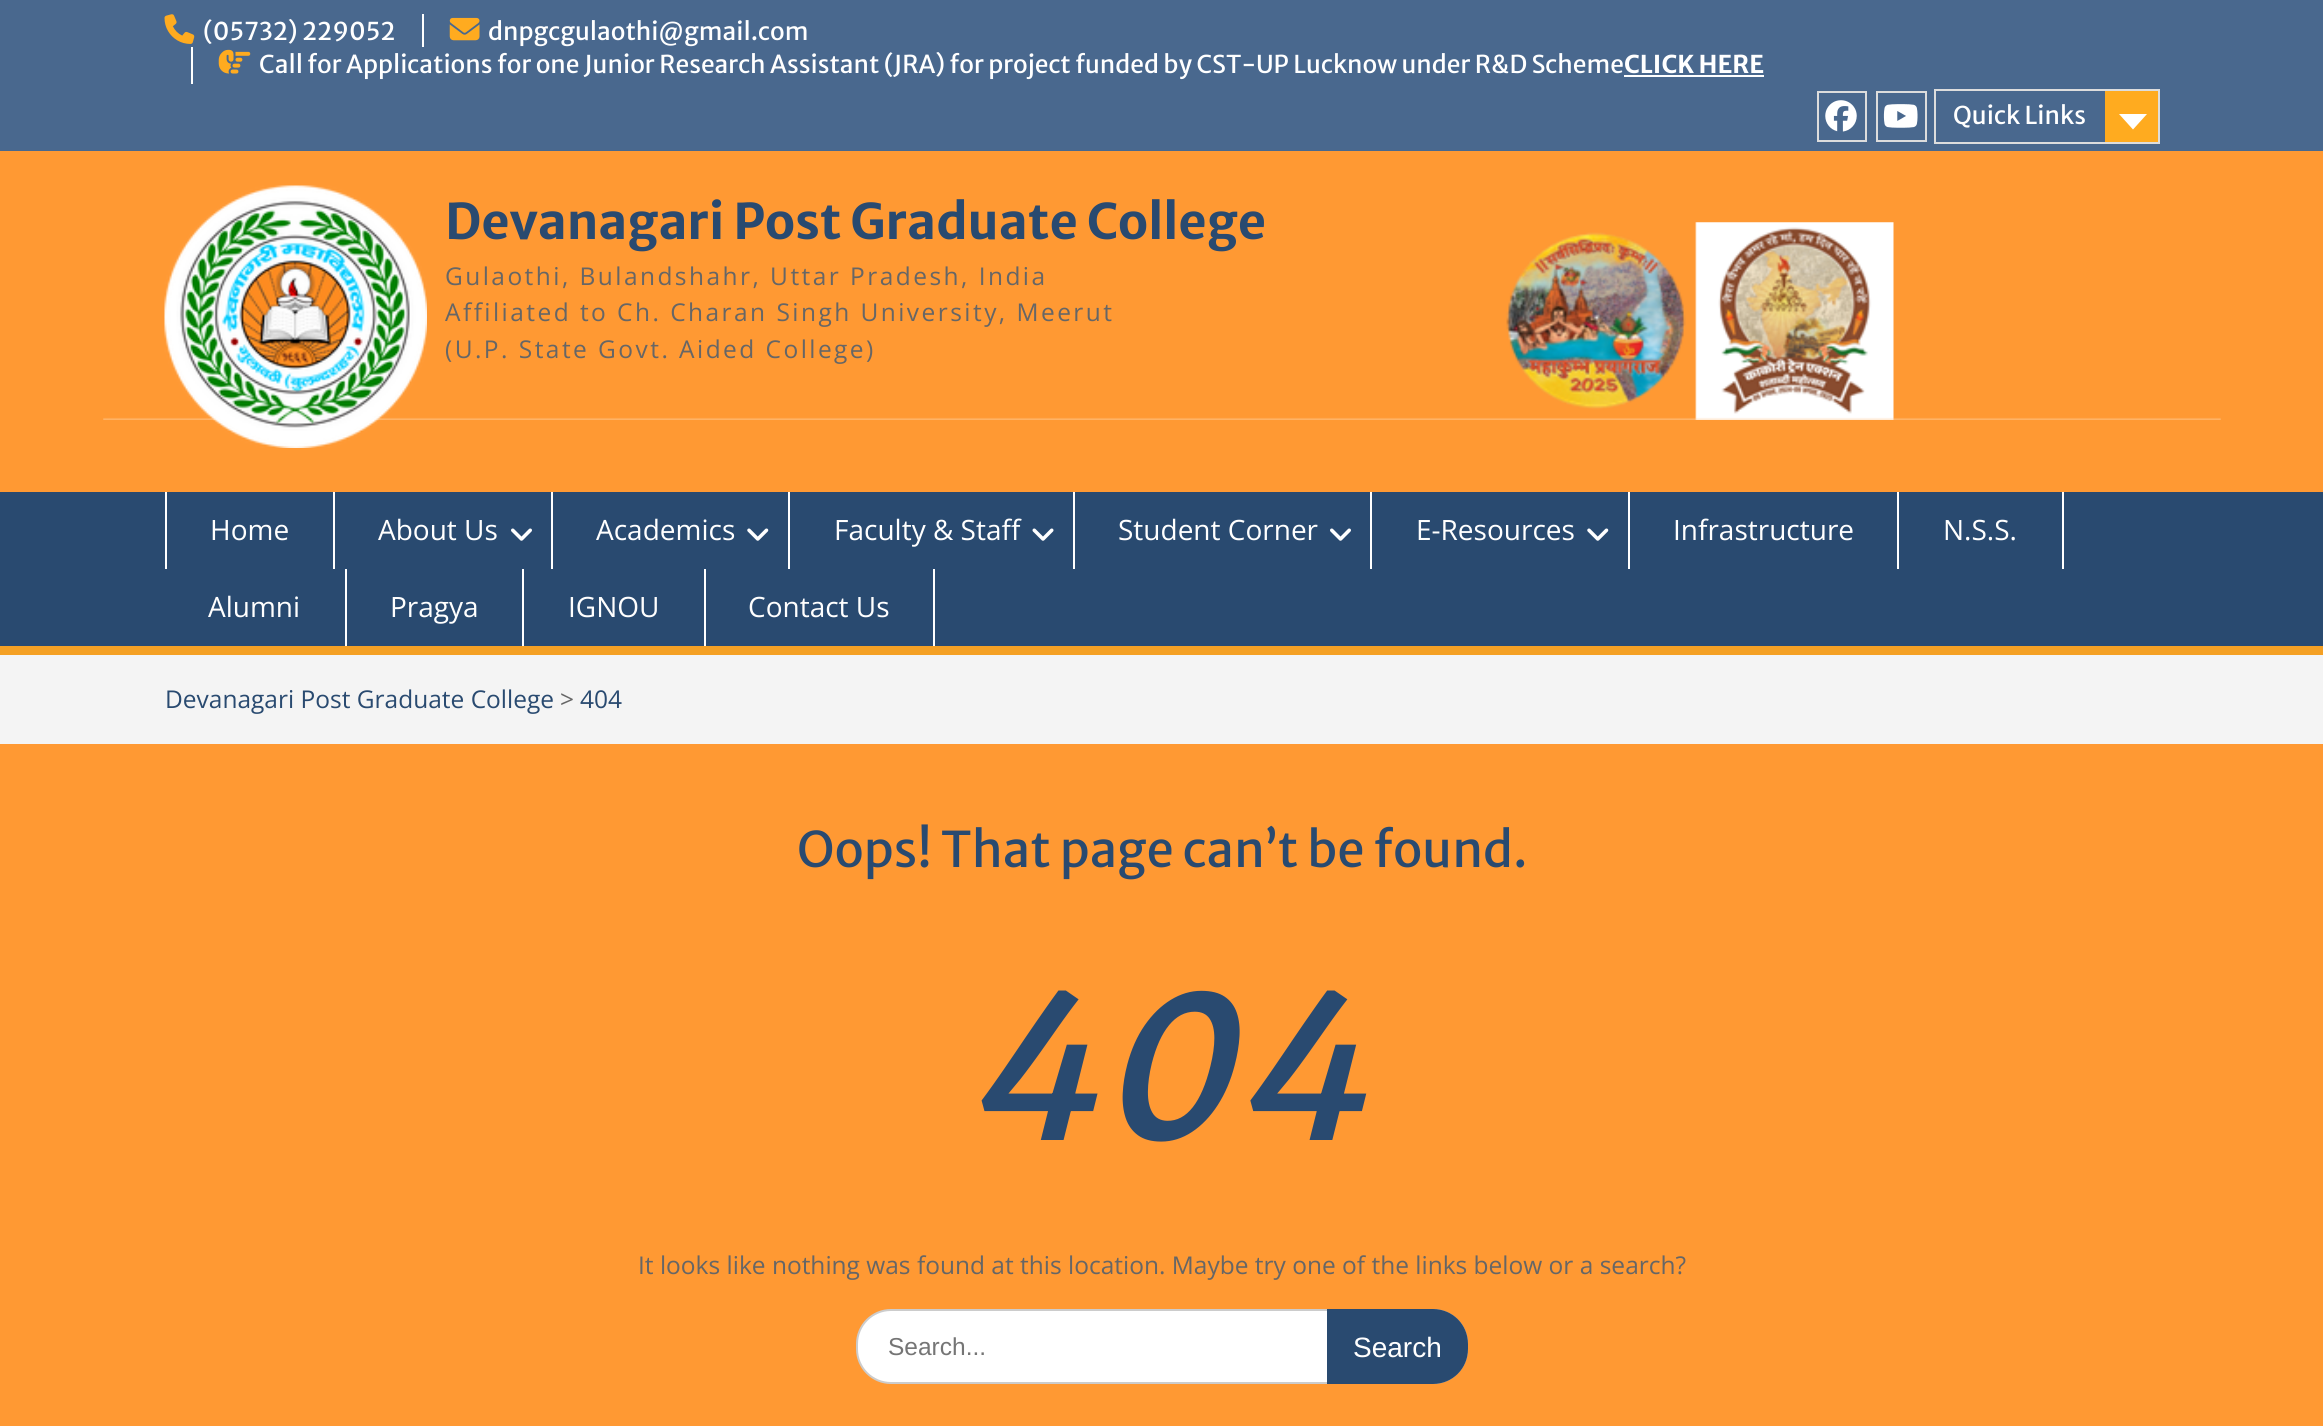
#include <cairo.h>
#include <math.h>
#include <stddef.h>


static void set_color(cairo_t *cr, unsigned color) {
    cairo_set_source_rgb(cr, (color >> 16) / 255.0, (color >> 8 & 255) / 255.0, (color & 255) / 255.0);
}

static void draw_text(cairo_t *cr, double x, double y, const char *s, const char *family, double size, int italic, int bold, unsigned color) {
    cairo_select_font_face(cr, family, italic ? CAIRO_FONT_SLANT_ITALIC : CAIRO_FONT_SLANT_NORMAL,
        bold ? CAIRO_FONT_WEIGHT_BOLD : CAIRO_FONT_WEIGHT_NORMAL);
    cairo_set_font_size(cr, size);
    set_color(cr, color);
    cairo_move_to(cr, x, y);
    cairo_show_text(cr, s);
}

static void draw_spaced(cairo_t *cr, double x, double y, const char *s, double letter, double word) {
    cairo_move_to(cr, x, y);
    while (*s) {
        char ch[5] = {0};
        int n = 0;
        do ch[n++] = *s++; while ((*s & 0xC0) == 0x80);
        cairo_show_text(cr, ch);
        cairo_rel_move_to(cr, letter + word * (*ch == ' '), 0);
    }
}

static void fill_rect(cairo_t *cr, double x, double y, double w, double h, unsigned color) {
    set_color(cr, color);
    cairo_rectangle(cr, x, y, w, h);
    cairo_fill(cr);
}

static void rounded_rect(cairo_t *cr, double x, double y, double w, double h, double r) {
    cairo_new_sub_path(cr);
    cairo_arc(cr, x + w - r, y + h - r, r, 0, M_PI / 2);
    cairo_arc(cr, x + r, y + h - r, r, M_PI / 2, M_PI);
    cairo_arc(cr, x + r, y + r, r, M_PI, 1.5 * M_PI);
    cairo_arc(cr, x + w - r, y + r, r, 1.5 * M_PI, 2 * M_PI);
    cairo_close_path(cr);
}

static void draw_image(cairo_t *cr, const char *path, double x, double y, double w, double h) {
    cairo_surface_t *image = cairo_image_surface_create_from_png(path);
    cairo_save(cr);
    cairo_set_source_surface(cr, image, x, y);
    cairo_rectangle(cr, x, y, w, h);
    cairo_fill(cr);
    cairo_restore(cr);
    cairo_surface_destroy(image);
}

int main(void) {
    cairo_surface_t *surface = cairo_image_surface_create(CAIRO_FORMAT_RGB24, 2323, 1426);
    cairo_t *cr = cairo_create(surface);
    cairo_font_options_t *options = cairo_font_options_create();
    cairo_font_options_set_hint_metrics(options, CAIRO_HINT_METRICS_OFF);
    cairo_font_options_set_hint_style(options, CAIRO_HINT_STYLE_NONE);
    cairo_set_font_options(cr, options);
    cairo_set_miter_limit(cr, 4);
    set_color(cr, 0xFF9933);
    cairo_paint(cr);
    fill_rect(cr, 0, 0, 2323, 151, 0x49688E);
    draw_image(cr, "assets/img1.png", 164, 14, 31, 30);
    draw_text(cr, 203, 40, "(05732) 229052", "Merriweather Sans", 24.5, 0, 0, 0xFFFFFF);
    fill_rect(cr, 422, 14, 2, 33, 0xFFFFFF);
    draw_image(cr, "assets/img2.png", 449, 17, 31, 24);
    draw_text(cr, 488, 40, "dnpgcgulaothi@gmail.com", "Merriweather Sans", 24.5, 0, 0, 0xFFFFFF);
    fill_rect(cr, 191, 47, 2, 37, 0xFFFFFF);
    draw_image(cr, "assets/img3.png", 218, 49, 33, 25);
    draw_text(cr, 259, 73, "Call for Applications for one Junior Research Assistant (JRA) for project funded by CST-UP Lucknow under R&D Scheme", "Merriweather Sans", 24.5, 0, 0, 0xFFFFFF);
    draw_text(cr, 1624, 73, "CLICK HERE", "Merriweather Sans", 24.5, 0, 1, 0xFFFFFF);
    fill_rect(cr, 1624, 75, 140, 2, 0xFFFFFF);
    cairo_rectangle(cr, 1818, 92, 48, 49);
    set_color(cr, 0xDDDDDD);
    cairo_stroke(cr);
    draw_image(cr, "assets/img4.png", 1825, 100, 32, 32);
    cairo_rectangle(cr, 1877, 92, 49, 49);
    cairo_stroke(cr);
    draw_image(cr, "assets/img5.png", 1883, 104, 35, 24);
    cairo_rectangle(cr, 1935, 90, 224, 53);
    cairo_stroke(cr);
    draw_text(cr, 1953, 124, "Quick Links", "Merriweather Sans", 24.5, 0, 0, 0xFFFFFF);
    fill_rect(cr, 2105, 91, 53, 51, 0xFFAB1F);
    set_color(cr, 0xFFFFFF);
    cairo_new_path(cr);
    cairo_move_to(cr, 2119, 114);
    cairo_line_to(cr, 2147, 114);
    cairo_line_to(cr, 2133, 129.5);
    cairo_close_path(cr);
    cairo_fill(cr);
    draw_image(cr, "assets/img6.png", 103, 222, 2118, 198);
    draw_image(cr, "assets/img7.png", 164, 185, 263, 263);
    draw_text(cr, 445, 239, "Devanagari Post Graduate College", "Merriweather Sans", 49, 0, 1, 0x294A70);
    cairo_select_font_face(cr, "Open Sans", CAIRO_FONT_SLANT_NORMAL, CAIRO_FONT_WEIGHT_NORMAL);
    cairo_set_font_size(cr, 24.5);
    set_color(cr, 0x666666);
    draw_spaced(cr, 445, 285, "Gulaothi, Bulandshahr, Uttar Pradesh, India", 2.45, 0);
    draw_spaced(cr, 445, 321, "Affiliated to Ch. Charan Singh University, Meerut", 2.45, 0);
    draw_spaced(cr, 445, 358, "(U.P. State Govt. Aided College)", 2.45, 0);
    fill_rect(cr, 0, 492, 2323, 154, 0x294A70);
    fill_rect(cr, 0, 646, 2323, 9, 0xF4A024);
    fill_rect(cr, 333, 492, 2, 77, 0xFFFFFF);
    fill_rect(cr, 165, 492, 2, 77, 0xFFFFFF);
    draw_text(cr, 210, 540, "Home", "Open Sans", 28, 0, 0, 0xFFFFFF);
    fill_rect(cr, 551, 492, 2, 77, 0xFFFFFF);
    draw_text(cr, 378, 540, "About Us", "Open Sans", 28, 0, 0, 0xFFFFFF);
    draw_image(cr, "assets/img8.png", 511, 528, 21, 13);
    fill_rect(cr, 788, 492, 2, 77, 0xFFFFFF);
    draw_text(cr, 596, 540, "Academics", "Open Sans", 28, 0, 0, 0xFFFFFF);
    draw_image(cr, "assets/img9.png", 747, 528, 22, 13);
    fill_rect(cr, 1073, 492, 2, 77, 0xFFFFFF);
    draw_text(cr, 834, 540, "Faculty & Staff", "Open Sans", 28, 0, 0, 0xFFFFFF);
    draw_image(cr, "assets/img10.png", 1032, 528, 22, 13);
    fill_rect(cr, 1370, 492, 2, 77, 0xFFFFFF);
    draw_text(cr, 1118, 540, "Student Corner", "Open Sans", 28, 0, 0, 0xFFFFFF);
    draw_image(cr, "assets/img8.png", 1330, 528, 21, 13);
    fill_rect(cr, 1628, 492, 2, 77, 0xFFFFFF);
    draw_text(cr, 1416, 540, "E-Resources", "Open Sans", 28, 0, 0, 0xFFFFFF);
    draw_image(cr, "assets/img9.png", 1587, 528, 22, 13);
    fill_rect(cr, 1897, 492, 2, 77, 0xFFFFFF);
    draw_text(cr, 1673, 540, "Infrastructure", "Open Sans", 28, 0, 0, 0xFFFFFF);
    fill_rect(cr, 2062, 492, 2, 77, 0xFFFFFF);
    draw_text(cr, 1943, 540, "N.S.S.", "Open Sans", 28, 0, 0, 0xFFFFFF);
    fill_rect(cr, 345, 569, 2, 77, 0xFFFFFF);
    draw_text(cr, 208, 617, "Alumni", "Open Sans", 28, 0, 0, 0xFFFFFF);
    fill_rect(cr, 522, 569, 2, 77, 0xFFFFFF);
    draw_text(cr, 390, 617, "Pragya", "Open Sans", 28, 0, 0, 0xFFFFFF);
    fill_rect(cr, 704, 569, 2, 77, 0xFFFFFF);
    draw_text(cr, 568, 617, "IGNOU", "Open Sans", 28, 0, 0, 0xFFFFFF);
    fill_rect(cr, 933, 569, 2, 77, 0xFFFFFF);
    draw_text(cr, 748, 617, "Contact Us", "Open Sans", 28, 0, 0, 0xFFFFFF);
    fill_rect(cr, 0, 655, 2323, 89, 0xF4F4F4);
    draw_text(cr, 165, 708, "Devanagari Post Graduate College", "Open Sans", 24.5, 0, 0, 0x294A70);
    draw_text(cr, 560, 708, ">", "Open Sans", 24.5, 0, 0, 0x666666);
    draw_text(cr, 580, 708, "404", "Open Sans", 24.5, 0, 0, 0x294A70);
    draw_text(cr, 797, 867, "Oops! That page can’t be found.", "Merriweather Sans", 49, 0, 0, 0x294A70);
    draw_text(cr, 961, 1140, "404", "Merriweather Sans", 198, 1, 0, 0x294A70);
    draw_text(cr, 638, 1274, "It looks like nothing was found at this location. Maybe try one of the links below or a search?", "Open Sans", 24.5, 0, 0, 0x666666);
    set_color(cr, 0xFFFFFF);
    rounded_rect(cr, 857, 1310, 610, 73, 34);
    cairo_fill_preserve(cr);
    set_color(cr, 0xCCCCCC);
    cairo_stroke(cr);
    draw_text(cr, 888, 1355, "Search...", "Liberation Sans", 24.5, 0, 0, 0x757575);
    set_color(cr, 0x294A70);
    cairo_new_path(cr);
    cairo_move_to(cr, 1327, 1309);
    cairo_line_to(cr, 1433, 1309);
    cairo_curve_to(cr, 1452.5, 1309, 1468, 1324.5, 1468, 1344);
    cairo_line_to(cr, 1468, 1349);
    cairo_curve_to(cr, 1468, 1368.5, 1452.5, 1384, 1433, 1384);
    cairo_line_to(cr, 1327, 1384);
    cairo_close_path(cr);
    cairo_fill(cr);
    draw_text(cr, 1353, 1357, "Search", "Liberation Sans", 28, 0, 0, 0xFFFFFF);
    cairo_surface_write_to_png(surface, "output.png");
    cairo_font_options_destroy(options);
    cairo_destroy(cr);
    cairo_surface_destroy(surface);
    return 0;
}
